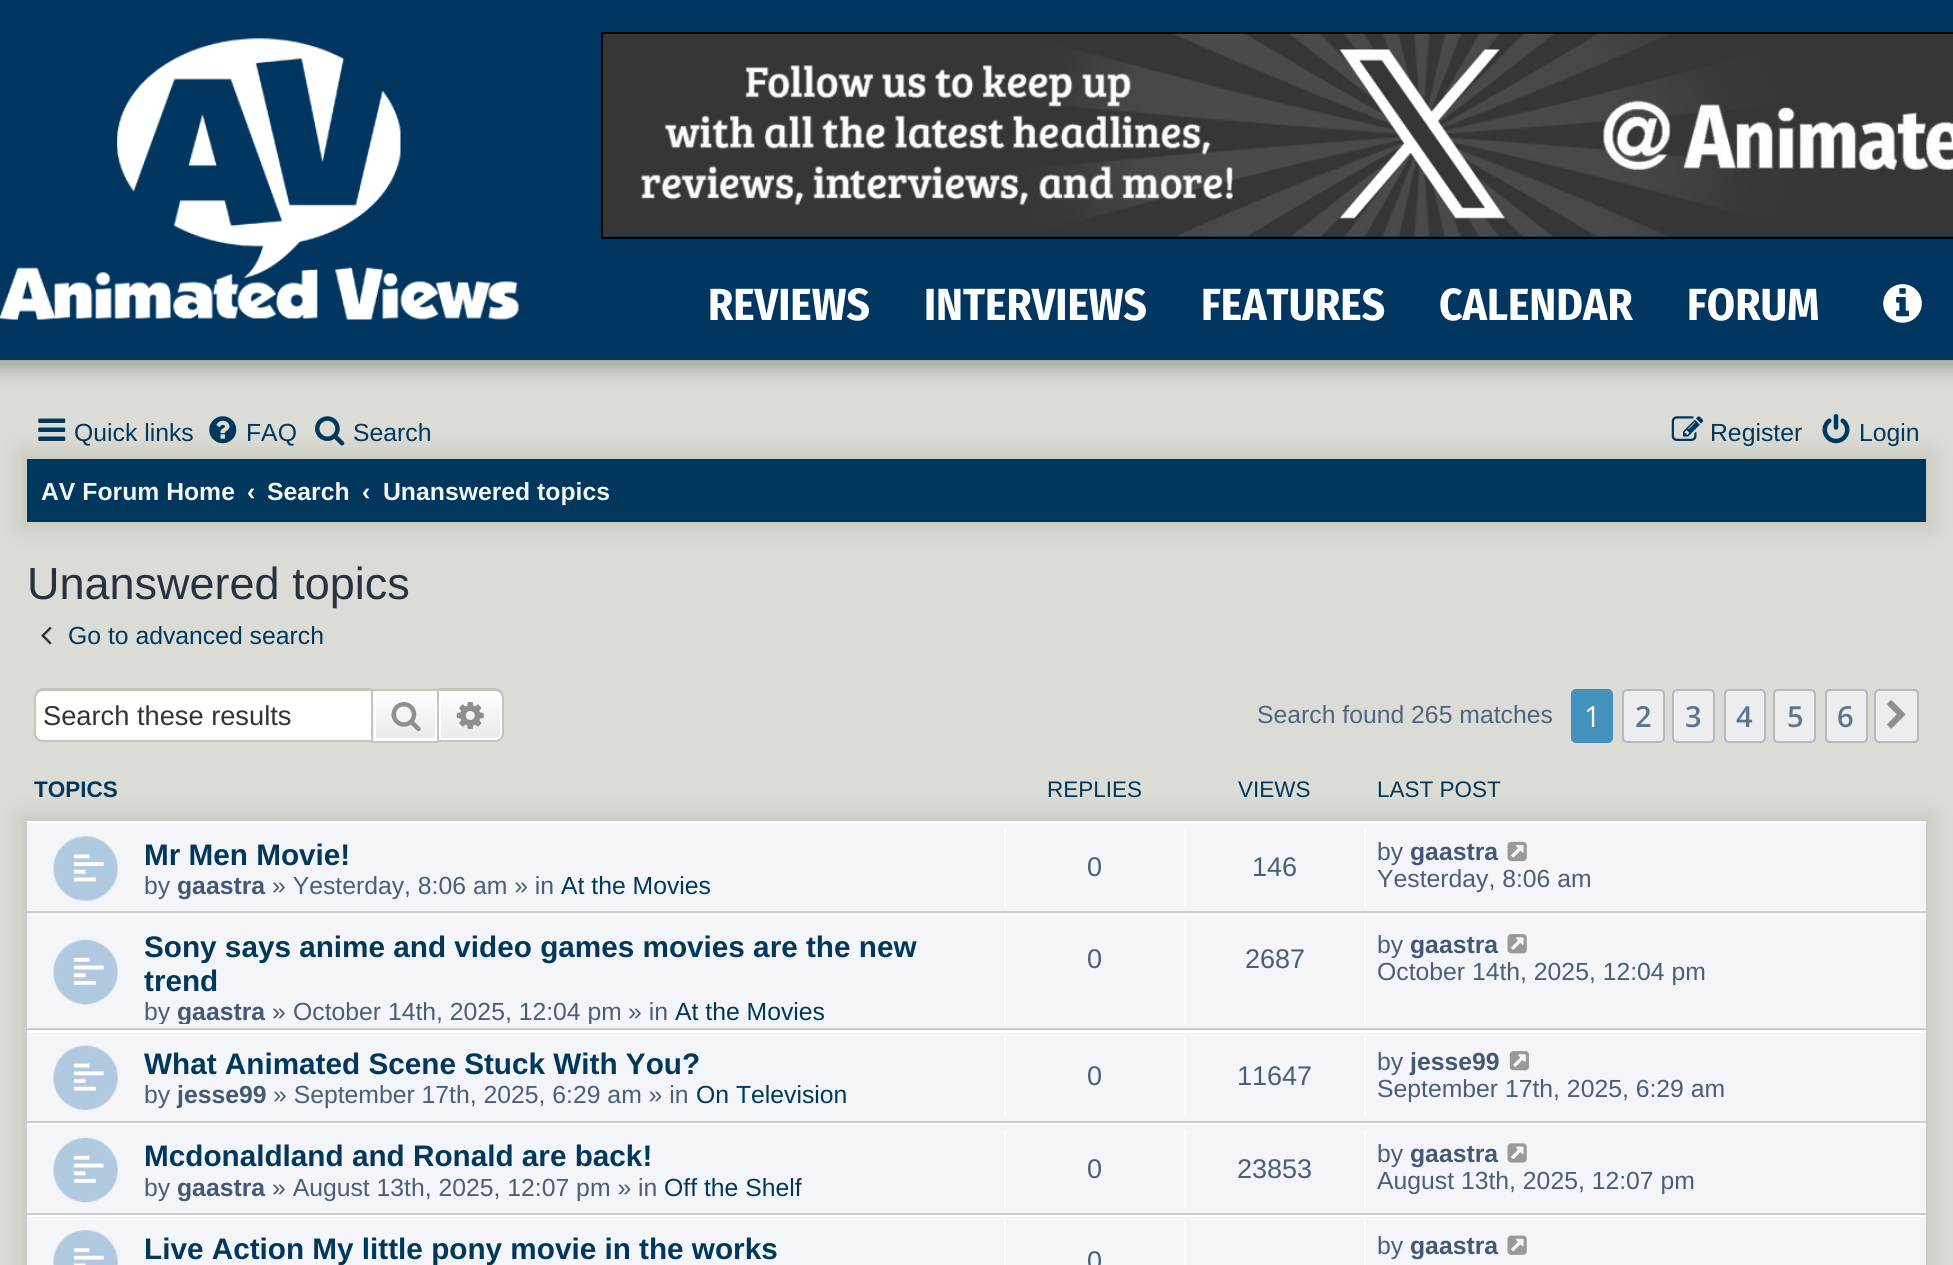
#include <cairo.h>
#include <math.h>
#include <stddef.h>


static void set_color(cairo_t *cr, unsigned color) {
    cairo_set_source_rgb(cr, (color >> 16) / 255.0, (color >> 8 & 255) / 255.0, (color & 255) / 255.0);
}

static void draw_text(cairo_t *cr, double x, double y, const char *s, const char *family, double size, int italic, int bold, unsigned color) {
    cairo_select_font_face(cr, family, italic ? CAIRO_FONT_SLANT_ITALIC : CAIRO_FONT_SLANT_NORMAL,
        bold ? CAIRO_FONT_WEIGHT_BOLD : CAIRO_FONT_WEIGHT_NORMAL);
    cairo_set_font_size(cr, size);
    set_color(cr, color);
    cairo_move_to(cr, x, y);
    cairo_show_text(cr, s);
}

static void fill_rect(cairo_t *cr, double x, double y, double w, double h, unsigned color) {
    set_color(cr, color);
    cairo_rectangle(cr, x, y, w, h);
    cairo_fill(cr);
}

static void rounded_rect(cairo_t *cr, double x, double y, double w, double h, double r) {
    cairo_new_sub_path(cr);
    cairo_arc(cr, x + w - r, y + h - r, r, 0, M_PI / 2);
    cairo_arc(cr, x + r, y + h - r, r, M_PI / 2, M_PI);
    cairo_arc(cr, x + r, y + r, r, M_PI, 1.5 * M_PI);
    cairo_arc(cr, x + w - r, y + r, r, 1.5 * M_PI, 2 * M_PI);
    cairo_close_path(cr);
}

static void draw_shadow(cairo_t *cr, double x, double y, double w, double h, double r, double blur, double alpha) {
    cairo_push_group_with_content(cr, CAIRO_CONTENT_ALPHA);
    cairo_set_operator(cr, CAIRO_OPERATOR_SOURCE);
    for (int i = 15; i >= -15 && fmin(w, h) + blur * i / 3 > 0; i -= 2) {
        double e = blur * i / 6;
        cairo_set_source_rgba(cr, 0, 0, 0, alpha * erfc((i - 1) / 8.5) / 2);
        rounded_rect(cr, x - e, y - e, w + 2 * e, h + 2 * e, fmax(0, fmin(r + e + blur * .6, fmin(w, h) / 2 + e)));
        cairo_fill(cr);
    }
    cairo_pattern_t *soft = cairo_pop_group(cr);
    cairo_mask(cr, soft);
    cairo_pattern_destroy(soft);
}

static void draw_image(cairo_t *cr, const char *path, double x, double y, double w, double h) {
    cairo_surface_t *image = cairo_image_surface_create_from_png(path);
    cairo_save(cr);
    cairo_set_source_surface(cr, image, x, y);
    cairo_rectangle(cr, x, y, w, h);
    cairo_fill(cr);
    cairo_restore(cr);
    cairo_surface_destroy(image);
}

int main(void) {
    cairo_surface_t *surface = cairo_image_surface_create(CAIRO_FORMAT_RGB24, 1953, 1265);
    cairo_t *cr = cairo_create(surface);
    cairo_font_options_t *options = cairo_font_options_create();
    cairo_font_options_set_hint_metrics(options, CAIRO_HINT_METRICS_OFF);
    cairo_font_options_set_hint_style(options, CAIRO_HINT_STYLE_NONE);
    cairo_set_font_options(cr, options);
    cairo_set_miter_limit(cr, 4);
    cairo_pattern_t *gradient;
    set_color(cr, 0xDCDCD6);
    cairo_paint(cr);
    set_color(cr, 0x000000);
    draw_shadow(cr, -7, -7, 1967, 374, 0, 11, 0.3);
    fill_rect(cr, 0, 0, 1953, 360, 0x00365F);
    draw_image(cr, "assets/img1.png", 0, 38, 519, 282);
    cairo_rectangle(cr, 602, 33, 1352, 205);
    set_color(cr, 0x000000);
    cairo_stroke(cr);
    draw_image(cr, "assets/img2.png", 603, 33, 1350, 204);
    draw_text(cr, 708, 320, "REVIEWS", "Fira Sans Condensed", 45, 0, 1, 0xFFFFFF);
    draw_text(cr, 924, 320, "INTERVIEWS", "Fira Sans Condensed", 45, 0, 1, 0xFFFFFF);
    draw_text(cr, 1201, 320, "FEATURES", "Fira Sans Condensed", 45, 0, 1, 0xFFFFFF);
    draw_text(cr, 1439, 320, "CALENDAR", "Fira Sans Condensed", 45, 0, 1, 0xFFFFFF);
    draw_text(cr, 1687, 320, "FORUM", "Fira Sans Condensed", 45, 0, 1, 0xFFFFFF);
    draw_image(cr, "assets/img3.png", 1883, 284, 39, 39);
    set_color(cr, 0x000000);
    draw_shadow(cr, 20, 452, 1913, 77, 0, 11, 0.1);
    draw_image(cr, "assets/img4.png", 38, 418, 28, 23);
    draw_text(cr, 74, 441, "Quick links", "Liberation Sans", 24.75, 0, 0, 0x00385D);
    draw_image(cr, "assets/img5.png", 209, 416, 28, 28);
    draw_text(cr, 246, 441, "FAQ", "Liberation Sans", 24.75, 0, 0, 0x00385D);
    draw_image(cr, "assets/img6.png", 315, 416, 30, 30);
    draw_text(cr, 353, 441, "Search", "Liberation Sans", 24.75, 0, 0, 0x00385D);
    draw_image(cr, "assets/img7.png", 1671, 416, 33, 25);
    draw_text(cr, 1710, 441, "Register", "Liberation Sans", 24.75, 0, 0, 0x00385D);
    draw_image(cr, "assets/img8.png", 1822, 414, 28, 30);
    draw_text(cr, 1859, 441, "Login", "Liberation Sans", 24.75, 0, 0, 0x00385D);
    fill_rect(cr, 27, 459, 1899, 63, 0x00385D);
    draw_text(cr, 41, 500, "AV Forum Home", "Liberation Sans", 24.75, 0, 1, 0xF4F5F8);
    draw_text(cr, 247, 500, "‹", "Liberation Sans", 24.75, 0, 1, 0xFFFFFF);
    draw_text(cr, 267, 500, "Search", "Liberation Sans", 24.75, 0, 1, 0xF4F5F8);
    draw_text(cr, 362, 500, "‹", "Liberation Sans", 24.75, 0, 1, 0xFFFFFF);
    draw_text(cr, 383, 500, "Unanswered topics", "Liberation Sans", 24.75, 0, 1, 0xF4F5F8);
    draw_text(cr, 27, 599, "Unanswered topics", "Liberation Sans", 45, 0, 0, 0x28313F);
    draw_image(cr, "assets/img9.png", 41, 626, 11, 19);
    draw_text(cr, 68, 644, "Go to advanced search", "Liberation Sans", 24.75, 0, 0, 0x00385D);
    set_color(cr, 0xFFFFFF);
    cairo_new_path(cr);
    cairo_move_to(cr, 43, 691);
    cairo_line_to(cr, 371, 691);
    cairo_line_to(cr, 371, 740);
    cairo_line_to(cr, 43, 740);
    cairo_curve_to(cr, 39, 740, 36, 737, 36, 733);
    cairo_line_to(cr, 36, 698);
    cairo_curve_to(cr, 36, 694, 39, 691, 43, 691);
    cairo_close_path(cr);
    cairo_fill(cr);
    set_color(cr, 0xC7C3BF);
    cairo_set_fill_rule(cr, CAIRO_FILL_RULE_EVEN_ODD);
    cairo_new_path(cr);
    cairo_move_to(cr, 43, 688);
    cairo_line_to(cr, 371, 688);
    cairo_line_to(cr, 371, 742);
    cairo_line_to(cr, 43, 742);
    cairo_curve_to(cr, 38, 742, 34, 738, 34, 734);
    cairo_line_to(cr, 34, 698);
    cairo_curve_to(cr, 34, 693, 38, 688, 43, 688);
    cairo_close_path(cr);
    cairo_move_to(cr, 43, 691);
    cairo_line_to(cr, 371, 691);
    cairo_line_to(cr, 371, 740);
    cairo_line_to(cr, 43, 740);
    cairo_curve_to(cr, 39, 740, 36, 737, 36, 734);
    cairo_line_to(cr, 36, 698);
    cairo_curve_to(cr, 36, 694, 39, 691, 43, 691);
    cairo_close_path(cr);
    cairo_fill(cr);
    draw_text(cr, 43, 725, "Search these results", "Liberation Sans", 27.25, 0, 0, 0x333333);
    gradient = cairo_pattern_create_linear(405, 691, 405, 740);
    cairo_pattern_add_color_stop_rgba(gradient, 0, 1, 1, 1, 1);
    cairo_pattern_add_color_stop_rgba(gradient, 1, 0.914, 0.914, 0.914, 1);
    cairo_set_source(cr, gradient);
    cairo_pattern_destroy(gradient);
    cairo_rectangle(cr, 373, 691, 62, 49);
    cairo_fill(cr);
    gradient = cairo_pattern_create_linear(405, 740, 405, 790);
    cairo_pattern_add_color_stop_rgba(gradient, 0, 1, 1, 1, 1);
    cairo_pattern_add_color_stop_rgba(gradient, 1, 0.914, 0.914, 0.914, 1);
    cairo_set_source(cr, gradient);
    cairo_pattern_destroy(gradient);
    cairo_rectangle(cr, 371, 740, 68, 1);
    cairo_fill(cr);
    cairo_rectangle(cr, 375, 692, 61, 47);
    set_color(cr, 0xFFFFFF);
    cairo_stroke(cr);
    cairo_rectangle(cr, 372, 690, 66, 52);
    set_color(cr, 0xC7C3BF);
    cairo_stroke(cr);
    draw_image(cr, "assets/img10.png", 391, 702, 30, 30);
    gradient = cairo_pattern_create_linear(470, 691, 470, 740);
    cairo_pattern_add_color_stop_rgba(gradient, 0, 1, 1, 1, 1);
    cairo_pattern_add_color_stop_rgba(gradient, 1, 0.914, 0.914, 0.914, 1);
    cairo_set_source(cr, gradient);
    cairo_pattern_destroy(gradient);
    cairo_new_path(cr);
    cairo_move_to(cr, 440, 692);
    cairo_line_to(cr, 495, 692);
    cairo_curve_to(cr, 498.5, 692, 501, 694.5, 501, 698);
    cairo_line_to(cr, 501, 733);
    cairo_curve_to(cr, 501, 736.5, 498.5, 739, 495, 739);
    cairo_line_to(cr, 440, 739);
    cairo_close_path(cr);
    cairo_fill_preserve(cr);
    set_color(cr, 0xFFFFFF);
    cairo_stroke(cr);
    set_color(cr, 0xC7C3BF);
    cairo_new_path(cr);
    cairo_move_to(cr, 439, 688);
    cairo_line_to(cr, 495, 688);
    cairo_curve_to(cr, 500, 688, 504, 693, 504, 698);
    cairo_line_to(cr, 504, 734);
    cairo_curve_to(cr, 504, 738, 500, 742, 495, 742);
    cairo_line_to(cr, 439, 742);
    cairo_close_path(cr);
    cairo_move_to(cr, 439, 691);
    cairo_line_to(cr, 495, 691);
    cairo_curve_to(cr, 499, 691, 502, 694, 502, 698);
    cairo_line_to(cr, 502, 734);
    cairo_curve_to(cr, 502, 737, 499, 740, 495, 740);
    cairo_line_to(cr, 439, 740);
    cairo_close_path(cr);
    cairo_fill(cr);
    draw_image(cr, "assets/img11.png", 456, 702, 28, 27);
    draw_text(cr, 1257, 723, "Search found 265 matches", "Liberation Sans", 24.75, 0, 0, 0x536482);
    set_color(cr, 0x4692BF);
    rounded_rect(cr, 1572, 690, 40, 52, 4);
    cairo_fill_preserve(cr);
    cairo_stroke(cr);
    draw_text(cr, 1584, 727, "1", "Open Sans", 29, 0, 0, 0xFFFFFF);
    set_color(cr, 0xECEDEE);
    rounded_rect(cr, 1623, 690, 41, 52, 4);
    cairo_fill_preserve(cr);
    set_color(cr, 0xB4BAC0);
    cairo_stroke(cr);
    draw_text(cr, 1635, 727, "2", "Open Sans SemiBold", 29, 0, 0, 0x5C758C);
    set_color(cr, 0xECEDEE);
    rounded_rect(cr, 1673, 690, 41, 52, 4);
    cairo_fill_preserve(cr);
    set_color(cr, 0xB4BAC0);
    cairo_stroke(cr);
    draw_text(cr, 1685, 727, "3", "Open Sans SemiBold", 29, 0, 0, 0x5C758C);
    set_color(cr, 0xECEDEE);
    rounded_rect(cr, 1725, 690, 40, 52, 4);
    cairo_fill_preserve(cr);
    set_color(cr, 0xB4BAC0);
    cairo_stroke(cr);
    draw_text(cr, 1736, 727, "4", "Open Sans SemiBold", 29, 0, 0, 0x5C758C);
    set_color(cr, 0xECEDEE);
    rounded_rect(cr, 1774, 690, 41, 52, 4);
    cairo_fill_preserve(cr);
    set_color(cr, 0xB4BAC0);
    cairo_stroke(cr);
    draw_text(cr, 1787, 727, "5", "Open Sans SemiBold", 29, 0, 0, 0x5C758C);
    set_color(cr, 0xECEDEE);
    rounded_rect(cr, 1826, 690, 41, 52, 4);
    cairo_fill_preserve(cr);
    set_color(cr, 0xB4BAC0);
    cairo_stroke(cr);
    draw_text(cr, 1837, 727, "6", "Open Sans SemiBold", 29, 0, 0, 0x5C758C);
    set_color(cr, 0xECEDEE);
    rounded_rect(cr, 1875, 690, 43, 52, 4);
    cairo_fill_preserve(cr);
    set_color(cr, 0xB4BAC0);
    cairo_stroke(cr);
    draw_image(cr, "assets/img12.png", 1887, 700, 19, 29);
    set_color(cr, 0x000000);
    draw_shadow(cr, 20, 815, 1913, 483, 0, 11, 0.1);
    draw_text(cr, 34, 797, "TOPICS", "Liberation Sans", 22.5, 0, 1, 0x00385D);
    draw_text(cr, 1047, 797, "REPLIES", "Liberation Sans", 22.5, 0, 0, 0x00385D);
    draw_text(cr, 1238, 797, "VIEWS", "Liberation Sans", 22.5, 0, 0, 0x00385D);
    draw_text(cr, 1377, 797, "LAST POST", "Liberation Sans", 22.5, 0, 0, 0x00385D);
    fill_rect(cr, 27, 823, 1899, 91, 0xF4F5F8);
    fill_rect(cr, 27, 821, 1899, 2, 0xFFFFFF);
    fill_rect(cr, 27, 911, 1899, 2, 0xCCCCCC);
    draw_image(cr, "assets/img13.png", 53, 836, 65, 65);
    draw_text(cr, 144, 865, "Mr Men Movie!", "Liberation Sans", 29.7, 0, 1, 0x00385D);
    draw_text(cr, 144, 894, "by", "Liberation Sans", 24.75, 0, 0, 0x4C5D77);
    draw_text(cr, 177, 894, "gaastra", "Liberation Sans", 24.75, 0, 1, 0x445775);
    draw_text(cr, 272, 894, "» Yesterday, 8:06 am » in", "Liberation Sans", 24.75, 0, 0, 0x4C5D77);
    draw_text(cr, 561, 894, "At the Movies", "Liberation Sans", 24.75, 0, 0, 0x00385D);
    fill_rect(cr, 1004, 828, 2, 79, 0xFFFFFF);
    draw_text(cr, 1087, 876, "0", "Liberation Sans", 27, 0, 0, 0x4C5D77);
    fill_rect(cr, 1184, 828, 2, 79, 0xFFFFFF);
    draw_text(cr, 1252, 876, "146", "Liberation Sans", 27, 0, 0, 0x4C5D77);
    fill_rect(cr, 1364, 828, 2, 79, 0xFFFFFF);
    draw_text(cr, 1377, 860, "by", "Liberation Sans", 24.75, 0, 0, 0x4C5D77);
    draw_text(cr, 1410, 860, "gaastra", "Liberation Sans", 24.75, 0, 1, 0x445775);
    draw_image(cr, "assets/img14.png", 1507, 841, 20, 21);
    draw_text(cr, 1377, 887, "Yesterday, 8:06 am", "Liberation Sans", 24.75, 0, 0, 0x4C5D77);
    fill_rect(cr, 27, 916, 1899, 115, 0xF4F5F8);
    fill_rect(cr, 27, 914, 1899, 2, 0xFFFFFF);
    fill_rect(cr, 27, 1028, 1899, 2, 0xCCCCCC);
    draw_image(cr, "assets/img15.png", 53, 939, 65, 66);
    draw_text(cr, 144, 957, "Sony says anime and video games movies are the new", "Liberation Sans", 29.7, 0, 1, 0x00385D);
    draw_text(cr, 144, 991, "trend", "Liberation Sans", 29.7, 0, 1, 0x00385D);
    cairo_save(cr);
    cairo_set_fill_rule(cr, CAIRO_FILL_RULE_WINDING);
    cairo_rectangle(cr, 27, 920, 1899, 104);
    cairo_clip(cr);
    draw_text(cr, 144, 1020, "by", "Liberation Sans", 24.75, 0, 0, 0x4C5D77);
    draw_text(cr, 177, 1020, "gaastra", "Liberation Sans", 24.75, 0, 1, 0x445775);
    cairo_restore(cr);
    draw_text(cr, 272, 1020, "»", "Liberation Sans", 24.75, 0, 0, 0x4C5D77);
    cairo_save(cr);
    cairo_set_fill_rule(cr, CAIRO_FILL_RULE_WINDING);
    cairo_rectangle(cr, 27, 920, 1899, 104);
    cairo_clip(cr);
    draw_text(cr, 293, 1020, "October 14th, 2025, 12:04 pm", "Liberation Sans", 24.75, 0, 0, 0x4C5D77);
    cairo_restore(cr);
    draw_text(cr, 628, 1020, "» in", "Liberation Sans", 24.75, 0, 0, 0x4C5D77);
    draw_text(cr, 675, 1020, "At the Movies", "Liberation Sans", 24.75, 0, 0, 0x00385D);
    fill_rect(cr, 1004, 920, 2, 104, 0xFFFFFF);
    draw_text(cr, 1087, 968, "0", "Liberation Sans", 27, 0, 0, 0x4C5D77);
    fill_rect(cr, 1184, 920, 2, 104, 0xFFFFFF);
    draw_text(cr, 1245, 968, "2687", "Liberation Sans", 27, 0, 0, 0x4C5D77);
    fill_rect(cr, 1364, 920, 2, 104, 0xFFFFFF);
    draw_text(cr, 1377, 953, "by", "Liberation Sans", 24.75, 0, 0, 0x4C5D77);
    draw_text(cr, 1410, 953, "gaastra", "Liberation Sans", 24.75, 0, 1, 0x445775);
    draw_image(cr, "assets/img16.png", 1507, 934, 20, 20);
    draw_text(cr, 1377, 980, "October 14th, 2025, 12:04 pm", "Liberation Sans", 24.75, 0, 0, 0x4C5D77);
    fill_rect(cr, 27, 1033, 1899, 88, 0xF4F5F8);
    fill_rect(cr, 27, 1031, 1899, 2, 0xFFFFFF);
    fill_rect(cr, 27, 1121, 1899, 2, 0xCCCCCC);
    draw_image(cr, "assets/img17.png", 53, 1045, 65, 66);
    draw_text(cr, 144, 1074, "What Animated Scene Stuck With You?", "Liberation Sans", 29.7, 0, 1, 0x00385D);
    draw_text(cr, 144, 1103, "by", "Liberation Sans", 24.75, 0, 0, 0x4C5D77);
    draw_text(cr, 177, 1103, "jesse99", "Liberation Sans", 24.75, 0, 1, 0x445775);
    draw_text(cr, 273, 1103, "» September 17th, 2025, 6:29 am » in", "Liberation Sans", 24.75, 0, 0, 0x4C5D77);
    draw_text(cr, 696, 1103, "On Television", "Liberation Sans", 24.75, 0, 0, 0x00385D);
    fill_rect(cr, 1004, 1037, 2, 79, 0xFFFFFF);
    draw_text(cr, 1087, 1085, "0", "Liberation Sans", 27, 0, 0, 0x4C5D77);
    fill_rect(cr, 1184, 1037, 2, 79, 0xFFFFFF);
    draw_text(cr, 1237, 1085, "11647", "Liberation Sans", 27, 0, 0, 0x4C5D77);
    fill_rect(cr, 1364, 1037, 2, 79, 0xFFFFFF);
    draw_text(cr, 1377, 1070, "by", "Liberation Sans", 24.75, 0, 0, 0x4C5D77);
    draw_text(cr, 1410, 1070, "jesse99", "Liberation Sans", 24.75, 0, 1, 0x445775);
    draw_image(cr, "assets/img18.png", 1509, 1051, 20, 20);
    draw_text(cr, 1377, 1097, "September 17th, 2025, 6:29 am", "Liberation Sans", 24.75, 0, 0, 0x4C5D77);
    fill_rect(cr, 27, 1125, 1899, 88, 0xF4F5F8);
    fill_rect(cr, 27, 1123, 1899, 2, 0xFFFFFF);
    fill_rect(cr, 27, 1213, 1899, 2, 0xCCCCCC);
    draw_image(cr, "assets/img15.png", 53, 1137, 65, 66);
    draw_text(cr, 144, 1166, "Mcdonaldland and Ronald are back!", "Liberation Sans", 29.7, 0, 1, 0x00385D);
    draw_text(cr, 144, 1196, "by", "Liberation Sans", 24.75, 0, 0, 0x4C5D77);
    draw_text(cr, 177, 1196, "gaastra", "Liberation Sans", 24.75, 0, 1, 0x445775);
    draw_text(cr, 272, 1196, "» August 13th, 2025, 12:07 pm » in", "Liberation Sans", 24.75, 0, 0, 0x4C5D77);
    draw_text(cr, 664, 1196, "Off the Shelf", "Liberation Sans", 24.75, 0, 0, 0x00385D);
    fill_rect(cr, 1004, 1130, 2, 78, 0xFFFFFF);
    draw_text(cr, 1087, 1178, "0", "Liberation Sans", 27, 0, 0, 0x4C5D77);
    fill_rect(cr, 1184, 1130, 2, 78, 0xFFFFFF);
    draw_text(cr, 1237, 1178, "23853", "Liberation Sans", 27, 0, 0, 0x4C5D77);
    fill_rect(cr, 1364, 1130, 2, 78, 0xFFFFFF);
    draw_text(cr, 1377, 1162, "by", "Liberation Sans", 24.75, 0, 0, 0x4C5D77);
    draw_text(cr, 1410, 1162, "gaastra", "Liberation Sans", 24.75, 0, 1, 0x445775);
    draw_image(cr, "assets/img19.png", 1507, 1143, 20, 20);
    draw_text(cr, 1377, 1189, "August 13th, 2025, 12:07 pm", "Liberation Sans", 24.75, 0, 0, 0x4C5D77);
    fill_rect(cr, 27, 1217, 1899, 48, 0xF4F5F8);
    fill_rect(cr, 27, 1215, 1899, 2, 0xFFFFFF);
    draw_image(cr, "assets/img20.png", 53, 1230, 65, 35);
    draw_text(cr, 144, 1259, "Live Action My little pony movie in the works", "Liberation Sans", 29.7, 0, 1, 0x00385D);
    fill_rect(cr, 1004, 1222, 2, 43, 0xFFFFFF);
    draw_text(cr, 1087, 1270, "0", "Liberation Sans", 27, 0, 0, 0x4C5D77);
    fill_rect(cr, 1184, 1222, 2, 43, 0xFFFFFF);
    fill_rect(cr, 1364, 1222, 2, 43, 0xFFFFFF);
    draw_text(cr, 1377, 1254, "by", "Liberation Sans", 24.75, 0, 0, 0x4C5D77);
    draw_text(cr, 1410, 1254, "gaastra", "Liberation Sans", 24.75, 0, 1, 0x445775);
    draw_image(cr, "assets/img21.png", 1507, 1235, 20, 20);
    cairo_surface_write_to_png(surface, "output.png");
    cairo_font_options_destroy(options);
    cairo_destroy(cr);
    cairo_surface_destroy(surface);
    return 0;
}
